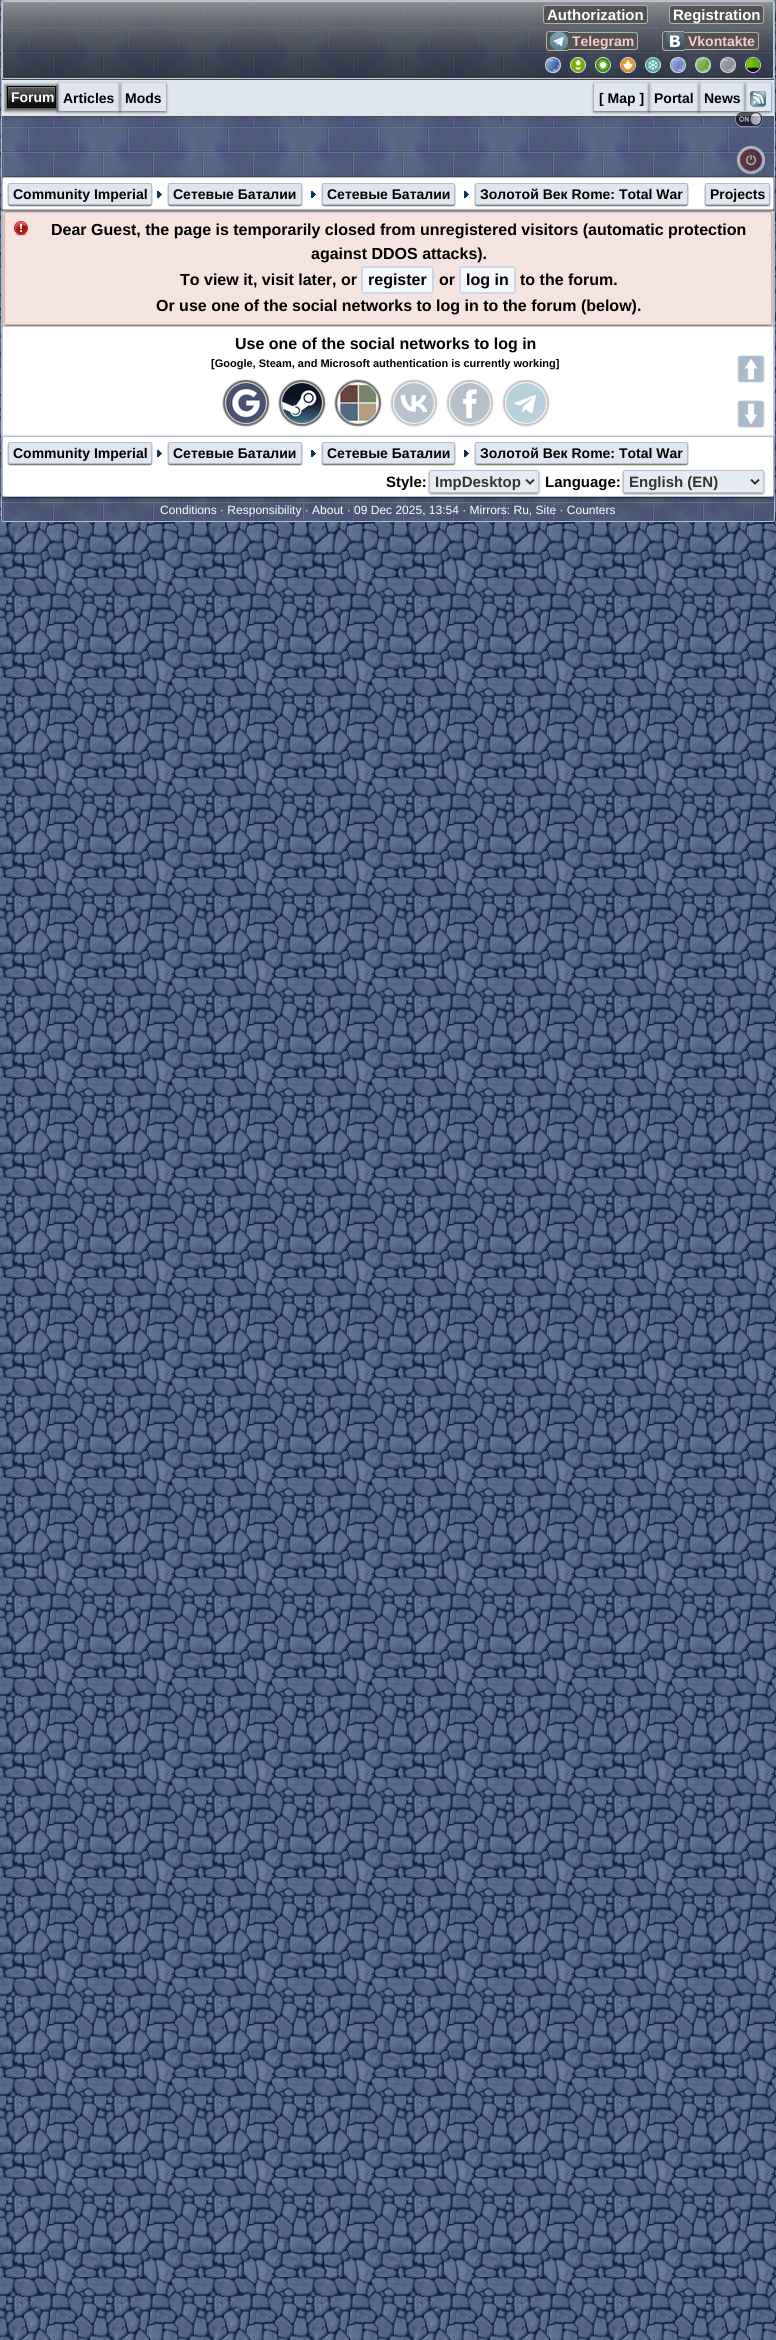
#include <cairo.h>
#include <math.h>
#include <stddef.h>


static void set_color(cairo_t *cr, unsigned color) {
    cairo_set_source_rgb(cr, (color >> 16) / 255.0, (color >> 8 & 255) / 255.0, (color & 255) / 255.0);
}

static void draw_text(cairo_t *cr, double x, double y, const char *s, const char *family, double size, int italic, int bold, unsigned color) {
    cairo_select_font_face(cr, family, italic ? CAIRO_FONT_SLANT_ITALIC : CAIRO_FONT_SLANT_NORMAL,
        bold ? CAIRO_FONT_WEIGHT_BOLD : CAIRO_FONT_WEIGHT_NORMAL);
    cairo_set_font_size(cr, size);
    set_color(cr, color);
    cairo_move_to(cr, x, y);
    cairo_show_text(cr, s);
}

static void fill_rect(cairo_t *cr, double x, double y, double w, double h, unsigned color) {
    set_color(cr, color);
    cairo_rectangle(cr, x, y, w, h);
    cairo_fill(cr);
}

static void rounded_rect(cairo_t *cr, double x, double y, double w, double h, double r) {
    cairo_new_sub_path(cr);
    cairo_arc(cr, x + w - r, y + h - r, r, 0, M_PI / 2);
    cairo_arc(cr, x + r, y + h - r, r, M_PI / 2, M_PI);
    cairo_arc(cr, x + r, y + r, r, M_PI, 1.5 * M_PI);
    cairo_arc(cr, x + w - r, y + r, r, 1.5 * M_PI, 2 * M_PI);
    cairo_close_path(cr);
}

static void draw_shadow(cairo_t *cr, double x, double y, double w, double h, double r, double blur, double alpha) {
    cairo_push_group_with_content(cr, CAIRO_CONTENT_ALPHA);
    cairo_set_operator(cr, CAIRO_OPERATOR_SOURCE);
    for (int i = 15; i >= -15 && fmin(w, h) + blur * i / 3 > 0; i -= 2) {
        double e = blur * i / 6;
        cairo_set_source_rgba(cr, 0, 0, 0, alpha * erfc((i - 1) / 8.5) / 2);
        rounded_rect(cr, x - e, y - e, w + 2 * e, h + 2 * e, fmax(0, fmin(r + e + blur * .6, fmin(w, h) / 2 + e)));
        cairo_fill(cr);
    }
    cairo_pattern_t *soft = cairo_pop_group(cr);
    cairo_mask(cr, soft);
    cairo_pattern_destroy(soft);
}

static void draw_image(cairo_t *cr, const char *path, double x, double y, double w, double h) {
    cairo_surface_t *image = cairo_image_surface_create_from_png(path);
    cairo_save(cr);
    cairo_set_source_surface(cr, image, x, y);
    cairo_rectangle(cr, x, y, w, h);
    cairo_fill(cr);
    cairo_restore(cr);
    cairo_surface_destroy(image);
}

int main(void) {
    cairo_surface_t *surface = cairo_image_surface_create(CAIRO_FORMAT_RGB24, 776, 2340);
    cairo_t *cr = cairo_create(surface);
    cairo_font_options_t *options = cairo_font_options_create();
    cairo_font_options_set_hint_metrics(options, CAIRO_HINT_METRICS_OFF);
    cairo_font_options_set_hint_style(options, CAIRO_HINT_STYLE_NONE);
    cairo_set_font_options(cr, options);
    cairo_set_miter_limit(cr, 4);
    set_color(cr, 0xFFFFFF);
    cairo_paint(cr);
    draw_image(cr, "assets/img1.png", 0, 522, 776, 1818);
    draw_image(cr, "assets/img2.png", 0, 0, 776, 522);
    draw_image(cr, "assets/img3.png", 1, 0, 774, 522);
    rounded_rect(cr, 1.5, 0.5, 773, 521, 1.5);
    set_color(cr, 0xB3BDCF);
    cairo_set_line_width(cr, 1);
    cairo_stroke(cr);
    rounded_rect(cr, 2.5, 1.5, 771, 77, 1.5);
    set_color(cr, 0xC3C6C8);
    cairo_stroke(cr);
    set_color(cr, 0x535353);
    rounded_rect(cr, 543.5, 5.5, 104, 18, 2.5);
    cairo_fill_preserve(cr);
    set_color(cr, 0xAEAEAE);
    cairo_stroke(cr);
    draw_text(cr, 547, 20, "Authorization", "Liberation Sans", 15, 0, 1, 0xFFFFFF);
    set_color(cr, 0x535353);
    rounded_rect(cr, 669.5, 5.5, 94, 18, 2.5);
    cairo_fill_preserve(cr);
    set_color(cr, 0xAEAEAE);
    cairo_stroke(cr);
    draw_text(cr, 673, 20, "Registration", "Liberation Sans", 15, 0, 1, 0xFFFFFF);
    set_color(cr, 0x535353);
    cairo_new_path(cr);
    cairo_move_to(cr, 549, 31);
    cairo_line_to(cr, 568, 31);
    cairo_line_to(cr, 568, 51);
    cairo_line_to(cr, 549, 51);
    cairo_curve_to(cr, 547.5, 51, 546, 49.5, 546, 48);
    cairo_line_to(cr, 546, 34);
    cairo_curve_to(cr, 546, 32.5, 547.5, 31, 549, 31);
    cairo_close_path(cr);
    cairo_fill(cr);
    set_color(cr, 0xAEAEAE);
    cairo_set_fill_rule(cr, CAIRO_FILL_RULE_EVEN_ODD);
    cairo_new_path(cr);
    cairo_move_to(cr, 549, 31);
    cairo_line_to(cr, 568, 31);
    cairo_line_to(cr, 568, 51);
    cairo_line_to(cr, 549, 51);
    cairo_curve_to(cr, 547.5, 51, 546, 49.5, 546, 48);
    cairo_line_to(cr, 546, 34);
    cairo_curve_to(cr, 546, 32.5, 547.5, 31, 549, 31);
    cairo_close_path(cr);
    cairo_move_to(cr, 549, 32);
    cairo_line_to(cr, 568, 32);
    cairo_line_to(cr, 568, 50);
    cairo_line_to(cr, 549, 50);
    cairo_curve_to(cr, 548, 50, 547, 49, 547, 48);
    cairo_line_to(cr, 547, 34);
    cairo_curve_to(cr, 547, 33, 548, 32, 549, 32);
    cairo_close_path(cr);
    cairo_fill(cr);
    set_color(cr, 0x535353);
    cairo_new_path(cr);
    cairo_move_to(cr, 568, 32);
    cairo_line_to(cr, 635, 32);
    cairo_curve_to(cr, 636.5, 32, 638, 33.5, 638, 35);
    cairo_line_to(cr, 638, 47);
    cairo_curve_to(cr, 638, 48.5, 636.5, 50, 635, 50);
    cairo_line_to(cr, 568, 50);
    cairo_close_path(cr);
    cairo_fill(cr);
    set_color(cr, 0xAEAEAE);
    cairo_new_path(cr);
    cairo_move_to(cr, 568, 32);
    cairo_line_to(cr, 635, 32);
    cairo_curve_to(cr, 637, 32, 638, 33, 638, 35);
    cairo_line_to(cr, 638, 47);
    cairo_curve_to(cr, 638, 49, 637, 50, 635, 50);
    cairo_line_to(cr, 568, 50);
    cairo_close_path(cr);
    cairo_move_to(cr, 568, 33);
    cairo_line_to(cr, 635, 33);
    cairo_curve_to(cr, 636, 33, 637, 34, 637, 35);
    cairo_line_to(cr, 637, 47);
    cairo_curve_to(cr, 637, 48, 636, 49, 635, 49);
    cairo_line_to(cr, 568, 49);
    cairo_close_path(cr);
    cairo_fill(cr);
    draw_image(cr, "assets/img4.png", 550, 32, 18, 18);
    draw_text(cr, 572, 46, "Telegram", "Liberation Sans", 14, 0, 1, 0xFDC9C9);
    set_color(cr, 0x535353);
    cairo_new_path(cr);
    cairo_move_to(cr, 665, 31);
    cairo_line_to(cr, 684, 31);
    cairo_line_to(cr, 684, 51);
    cairo_line_to(cr, 665, 51);
    cairo_curve_to(cr, 663.5, 51, 662, 49.5, 662, 48);
    cairo_line_to(cr, 662, 34);
    cairo_curve_to(cr, 662, 32.5, 663.5, 31, 665, 31);
    cairo_close_path(cr);
    cairo_fill(cr);
    set_color(cr, 0xAEAEAE);
    cairo_new_path(cr);
    cairo_move_to(cr, 665, 31);
    cairo_line_to(cr, 684, 31);
    cairo_line_to(cr, 684, 51);
    cairo_line_to(cr, 665, 51);
    cairo_curve_to(cr, 663.5, 51, 662, 49.5, 662, 48);
    cairo_line_to(cr, 662, 34);
    cairo_curve_to(cr, 662, 32.5, 663.5, 31, 665, 31);
    cairo_close_path(cr);
    cairo_move_to(cr, 665, 32);
    cairo_line_to(cr, 684, 32);
    cairo_line_to(cr, 684, 50);
    cairo_line_to(cr, 665, 50);
    cairo_curve_to(cr, 664, 50, 663, 49, 663, 48);
    cairo_line_to(cr, 663, 34);
    cairo_curve_to(cr, 663, 33, 664, 32, 665, 32);
    cairo_close_path(cr);
    cairo_fill(cr);
    set_color(cr, 0x535353);
    cairo_new_path(cr);
    cairo_move_to(cr, 684, 32);
    cairo_line_to(cr, 756, 32);
    cairo_curve_to(cr, 757.5, 32, 759, 33.5, 759, 35);
    cairo_line_to(cr, 759, 47);
    cairo_curve_to(cr, 759, 48.5, 757.5, 50, 756, 50);
    cairo_line_to(cr, 684, 50);
    cairo_close_path(cr);
    cairo_fill(cr);
    set_color(cr, 0xAEAEAE);
    cairo_new_path(cr);
    cairo_move_to(cr, 684, 32);
    cairo_line_to(cr, 756, 32);
    cairo_curve_to(cr, 758, 32, 759, 33, 759, 35);
    cairo_line_to(cr, 759, 47);
    cairo_curve_to(cr, 759, 49, 758, 50, 756, 50);
    cairo_line_to(cr, 684, 50);
    cairo_close_path(cr);
    cairo_move_to(cr, 684, 33);
    cairo_line_to(cr, 756, 33);
    cairo_curve_to(cr, 757, 33, 758, 34, 758, 35);
    cairo_line_to(cr, 758, 47);
    cairo_curve_to(cr, 758, 48, 757, 49, 756, 49);
    cairo_line_to(cr, 684, 49);
    cairo_close_path(cr);
    cairo_fill(cr);
    draw_image(cr, "assets/img5.png", 666, 32, 18, 18);
    draw_text(cr, 688, 46, "Vkontakte", "Liberation Sans", 14, 0, 1, 0xFDC9C9);
    draw_image(cr, "assets/img6.png", 546, 58, 15, 15);
    cairo_arc(cr, 553, 65, 7.5, 0, 2 * M_PI);
    set_color(cr, 0xCFD7E3);
    cairo_stroke(cr);
    draw_image(cr, "assets/img7.png", 570, 58, 16, 15);
    cairo_arc(cr, 578, 65, 7.5, 0, 2 * M_PI);
    cairo_stroke(cr);
    draw_image(cr, "assets/img8.png", 595, 58, 16, 15);
    cairo_arc(cr, 603, 65, 7.5, 0, 2 * M_PI);
    cairo_stroke(cr);
    draw_image(cr, "assets/img9.png", 620, 58, 16, 15);
    cairo_arc(cr, 628, 65, 7.5, 0, 2 * M_PI);
    cairo_stroke(cr);
    draw_image(cr, "assets/img10.png", 645, 58, 16, 15);
    cairo_arc(cr, 653, 65, 7.5, 0, 2 * M_PI);
    cairo_stroke(cr);
    draw_image(cr, "assets/img11.png", 670, 58, 16, 15);
    cairo_arc(cr, 678, 65, 7.5, 0, 2 * M_PI);
    cairo_stroke(cr);
    draw_image(cr, "assets/img12.png", 695, 58, 16, 15);
    cairo_arc(cr, 703, 65, 7.5, 0, 2 * M_PI);
    cairo_stroke(cr);
    draw_image(cr, "assets/img13.png", 720, 58, 16, 15);
    cairo_arc(cr, 728, 65, 7.5, 0, 2 * M_PI);
    cairo_stroke(cr);
    draw_image(cr, "assets/img14.png", 745, 58, 15, 15);
    cairo_arc(cr, 753, 65, 7.5, 0, 2 * M_PI);
    cairo_stroke(cr);
    fill_rect(cr, 2, 80, 772, 36, 0xDFE6EF);
    fill_rect(cr, 2, 79, 772, 1, 0x4D4D4D);
    fill_rect(cr, 2, 116, 772, 1, 0x4D4D4D);
    set_color(cr, 0x000000);
    draw_shadow(cr, 5, 85, 53, 26, 0, 1.5, 0.58);
    draw_image(cr, "assets/img15.png", 7, 86, 8, 22);
    draw_image(cr, "assets/img16.png", 15, 86, 42, 22);
    draw_text(cr, 11, 102, "Forum", "Liberation Sans", 14, 0, 1, 0xFFFFFF);
    cairo_save(cr);
    cairo_new_path(cr);
    cairo_move_to(cr, 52, 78);
    cairo_line_to(cr, 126, 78);
    cairo_line_to(cr, 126, 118);
    cairo_line_to(cr, 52, 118);
    cairo_close_path(cr);
    cairo_move_to(cr, 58, 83);
    cairo_line_to(cr, 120, 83);
    cairo_line_to(cr, 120, 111);
    cairo_line_to(cr, 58, 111);
    cairo_close_path(cr);
    cairo_clip(cr);
    set_color(cr, 0x000000);
    draw_shadow(cr, 58, 84, 62, 28, 0, 1.5, 0.58);
    cairo_restore(cr);
    draw_text(cr, 63, 103, "Articles", "Liberation Sans", 14, 0, 1, 0x000000);
    cairo_save(cr);
    cairo_new_path(cr);
    cairo_move_to(cr, 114, 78);
    cairo_line_to(cr, 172, 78);
    cairo_line_to(cr, 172, 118);
    cairo_line_to(cr, 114, 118);
    cairo_close_path(cr);
    cairo_move_to(cr, 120, 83);
    cairo_line_to(cr, 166, 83);
    cairo_line_to(cr, 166, 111);
    cairo_line_to(cr, 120, 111);
    cairo_close_path(cr);
    cairo_clip(cr);
    set_color(cr, 0x000000);
    draw_shadow(cr, 120, 84, 46, 28, 0, 1.5, 0.58);
    cairo_restore(cr);
    draw_text(cr, 125, 103, "Mods", "Liberation Sans", 14, 0, 1, 0x000000);
    cairo_save(cr);
    cairo_new_path(cr);
    cairo_move_to(cr, 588, 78);
    cairo_line_to(cr, 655, 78);
    cairo_line_to(cr, 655, 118);
    cairo_line_to(cr, 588, 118);
    cairo_close_path(cr);
    cairo_move_to(cr, 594, 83);
    cairo_line_to(cr, 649, 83);
    cairo_line_to(cr, 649, 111);
    cairo_line_to(cr, 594, 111);
    cairo_close_path(cr);
    cairo_clip(cr);
    set_color(cr, 0x000000);
    draw_shadow(cr, 594, 84, 55, 28, 0, 1.5, 0.58);
    cairo_restore(cr);
    draw_text(cr, 599, 103, "[ Map ]", "Liberation Sans", 14, 0, 1, 0x000000);
    cairo_save(cr);
    cairo_new_path(cr);
    cairo_move_to(cr, 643, 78);
    cairo_line_to(cr, 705, 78);
    cairo_line_to(cr, 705, 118);
    cairo_line_to(cr, 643, 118);
    cairo_close_path(cr);
    cairo_move_to(cr, 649, 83);
    cairo_line_to(cr, 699, 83);
    cairo_line_to(cr, 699, 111);
    cairo_line_to(cr, 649, 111);
    cairo_close_path(cr);
    cairo_clip(cr);
    set_color(cr, 0x000000);
    draw_shadow(cr, 649, 84, 50, 28, 0, 1.5, 0.58);
    cairo_restore(cr);
    draw_text(cr, 654, 103, "Portal", "Liberation Sans", 14, 0, 1, 0x000000);
    cairo_save(cr);
    cairo_new_path(cr);
    cairo_move_to(cr, 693, 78);
    cairo_line_to(cr, 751, 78);
    cairo_line_to(cr, 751, 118);
    cairo_line_to(cr, 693, 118);
    cairo_close_path(cr);
    cairo_move_to(cr, 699, 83);
    cairo_line_to(cr, 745, 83);
    cairo_line_to(cr, 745, 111);
    cairo_line_to(cr, 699, 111);
    cairo_close_path(cr);
    cairo_clip(cr);
    set_color(cr, 0x000000);
    draw_shadow(cr, 699, 84, 46, 28, 0, 1.5, 0.58);
    cairo_restore(cr);
    draw_text(cr, 704, 103, "News", "Liberation Sans", 14, 0, 1, 0x000000);
    cairo_save(cr);
    cairo_new_path(cr);
    cairo_move_to(cr, 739, 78);
    cairo_line_to(cr, 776, 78);
    cairo_line_to(cr, 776, 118);
    cairo_line_to(cr, 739, 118);
    cairo_close_path(cr);
    cairo_move_to(cr, 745, 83);
    cairo_line_to(cr, 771, 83);
    cairo_line_to(cr, 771, 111);
    cairo_line_to(cr, 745, 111);
    cairo_close_path(cr);
    cairo_clip(cr);
    set_color(cr, 0x000000);
    draw_shadow(cr, 745, 84, 26, 28, 0, 1.5, 0.58);
    cairo_restore(cr);
    draw_image(cr, "assets/img17.png", 750, 91, 16, 16);
    draw_image(cr, "assets/img18.png", 735, 111, 28, 16);
    set_color(cr, 0xFFFFFF);
    rounded_rect(cr, 2.5, 210.5, 771, 116, 1.5);
    cairo_fill_preserve(cr);
    set_color(cr, 0xCDCDCF);
    cairo_stroke(cr);
    set_color(cr, 0x000000);
    draw_shadow(cr, 4, 213, 768, 114, 2, 1.5, 0.58);
    set_color(cr, 0xF5E3DF);
    rounded_rect(cr, 4, 211, 768, 114, 2);
    cairo_fill(cr);
    draw_image(cr, "assets/img23.png", 14, 221, 14, 15);
    rounded_rect(cr, 4.5, 211.5, 767, 113, 1.5);
    set_color(cr, 0xE8B2A2);
    cairo_stroke(cr);
    set_color(cr, 0x000000);
    draw_shadow(cr, 2, 178, 772, 33, 2, 1.5, 0.58);
    draw_image(cr, "assets/img19.png", 737, 146, 28, 28);
    set_color(cr, 0xFFFFFF);
    rounded_rect(cr, 2.5, 326.5, 771, 111, 1.5);
    cairo_fill_preserve(cr);
    set_color(cr, 0xCDCDCF);
    cairo_stroke(cr);
    draw_image(cr, "assets/img20.png", 737, 355, 28, 28);
    draw_image(cr, "assets/img21.png", 737, 400, 28, 28);
    set_color(cr, 0xFFFFFF);
    rounded_rect(cr, 2.5, 177.5, 771, 32, 1.5);
    cairo_fill_preserve(cr);
    set_color(cr, 0xB3BDCF);
    cairo_stroke(cr);
    set_color(cr, 0x000000);
    draw_shadow(cr, 8, 184, 144, 22, 2, 0.5, 0.58);
    set_color(cr, 0xDFE6EF);
    rounded_rect(cr, 8.5, 183.5, 143, 21, 1.5);
    cairo_fill_preserve(cr);
    set_color(cr, 0xB3BDCF);
    cairo_stroke(cr);
    draw_text(cr, 13, 199, "Community Imperial", "Liberation Sans", 14, 0, 1, 0x000000);
    draw_image(cr, "assets/img22.png", 157, 191, 5, 7);
    set_color(cr, 0x000000);
    draw_shadow(cr, 168, 184, 134, 22, 2, 0.5, 0.58);
    set_color(cr, 0xDFE6EF);
    rounded_rect(cr, 168.5, 183.5, 133, 21, 1.5);
    cairo_fill_preserve(cr);
    set_color(cr, 0xB3BDCF);
    cairo_stroke(cr);
    draw_text(cr, 173, 199, "Сетевые Баталии", "Liberation Sans", 14, 0, 1, 0x000000);
    draw_image(cr, "assets/img22.png", 311, 191, 5, 7);
    set_color(cr, 0x000000);
    draw_shadow(cr, 322, 184, 133, 22, 2, 0.5, 0.58);
    set_color(cr, 0xDFE6EF);
    rounded_rect(cr, 322.5, 183.5, 132, 21, 1.5);
    cairo_fill_preserve(cr);
    set_color(cr, 0xB3BDCF);
    cairo_stroke(cr);
    draw_text(cr, 327, 199, "Сетевые Баталии", "Liberation Sans", 14, 0, 1, 0x000000);
    draw_image(cr, "assets/img22.png", 464, 191, 5, 7);
    set_color(cr, 0x000000);
    draw_shadow(cr, 475, 184, 213, 22, 2, 0.5, 0.58);
    set_color(cr, 0xDFE6EF);
    rounded_rect(cr, 475.5, 183.5, 212, 21, 1.5);
    cairo_fill_preserve(cr);
    set_color(cr, 0xB3BDCF);
    cairo_stroke(cr);
    draw_text(cr, 480, 199, "Золотой Век Rome: Total War", "Liberation Sans", 14, 0, 1, 0x000000);
    set_color(cr, 0x000000);
    draw_shadow(cr, 705, 184, 65, 22, 2, 0.5, 0.58);
    set_color(cr, 0xDFE6EF);
    rounded_rect(cr, 705.5, 183.5, 64, 21, 1.5);
    cairo_fill_preserve(cr);
    set_color(cr, 0xB3BDCF);
    cairo_stroke(cr);
    draw_text(cr, 710, 199, "Projects", "Liberation Sans", 14, 0, 1, 0x000000);
    draw_text(cr, 51, 235, "Dear Guest, the page is temporarily closed from unregistered visitors (automatic protection", "Liberation Sans", 16, 0, 1, 0x000000);
    draw_text(cr, 311, 259, "against DDOS attacks).", "Liberation Sans", 16, 0, 1, 0x000000);
    draw_text(cr, 180, 285, "To view it, visit later, or", "Liberation Sans", 16, 0, 1, 0x000000);
    draw_image(cr, "assets/img24.png", 361, 266, 73, 28);
    rounded_rect(cr, 362, 267, 71, 26, 2);
    set_color(cr, 0xCBD7E7);
    cairo_set_line_width(cr, 2);
    cairo_stroke(cr);
    draw_text(cr, 368, 285, "register", "Liberation Sans", 16, 0, 1, 0x000000);
    draw_text(cr, 439, 285, "or", "Liberation Sans", 16, 0, 1, 0x000000);
    draw_image(cr, "assets/img25.png", 459, 266, 57, 28);
    rounded_rect(cr, 460, 267, 55, 26, 2);
    set_color(cr, 0xCBD7E7);
    cairo_stroke(cr);
    draw_text(cr, 466, 285, "log in", "Liberation Sans", 16, 0, 1, 0x000000);
    draw_text(cr, 520, 285, "to the forum.", "Liberation Sans", 16, 0, 1, 0x000000);
    draw_text(cr, 156, 311, "Or use one of the social networks to log in to the forum (below).", "Liberation Sans", 16, 0, 1, 0x000000);
    draw_text(cr, 235, 349, "Use one of the social networks to log in", "Liberation Sans", 16, 0, 1, 0x000000);
    draw_text(cr, 211, 367, "[Google, Steam, and Microsoft authentication is currently working]", "Liberation Sans", 11, 0, 1, 0x000000);
    set_color(cr, 0x000000);
    draw_shadow(cr, 223, 380, 46, 46, 23, 0.5, 0.58);
    draw_image(cr, "assets/img26.png", 226, 382, 40, 42);
    cairo_arc(cr, 246, 403, 20.5, 0, 2 * M_PI);
    set_color(cr, 0xD3D6DB);
    cairo_set_line_width(cr, 1);
    cairo_stroke(cr);
    set_color(cr, 0x000000);
    draw_shadow(cr, 279, 380, 46, 46, 23, 0.5, 0.58);
    draw_image(cr, "assets/img27.png", 282, 382, 40, 42);
    cairo_arc(cr, 302, 403, 20.5, 0, 2 * M_PI);
    set_color(cr, 0xD3D6DB);
    cairo_stroke(cr);
    set_color(cr, 0x000000);
    draw_shadow(cr, 335, 380, 46, 46, 23, 0.5, 0.58);
    draw_image(cr, "assets/img28.png", 338, 382, 40, 41);
    cairo_arc(cr, 358, 403, 20.5, 0, 2 * M_PI);
    set_color(cr, 0xD5D6D9);
    cairo_stroke(cr);
    cairo_save(cr);
    cairo_new_path(cr);
    cairo_move_to(cr, 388, 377);
    cairo_line_to(cr, 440, 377);
    cairo_line_to(cr, 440, 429);
    cairo_line_to(cr, 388, 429);
    cairo_close_path(cr);
    cairo_move_to(cr, 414, 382);
    cairo_curve_to(cr, 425.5, 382, 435, 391.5, 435, 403);
    cairo_curve_to(cr, 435, 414.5, 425.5, 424, 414, 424);
    cairo_curve_to(cr, 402.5, 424, 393, 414.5, 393, 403);
    cairo_curve_to(cr, 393, 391.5, 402.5, 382, 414, 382);
    cairo_close_path(cr);
    cairo_clip(cr);
    set_color(cr, 0x999999);
    draw_shadow(cr, 391, 380, 46, 46, 23, 0.5, 0.58);
    cairo_restore(cr);
    draw_image(cr, "assets/img29.png", 394, 382, 40, 42);
    cairo_arc(cr, 414, 403, 20.5, 0, 2 * M_PI);
    set_color(cr, 0xEDEFF1);
    cairo_stroke(cr);
    cairo_save(cr);
    cairo_new_path(cr);
    cairo_move_to(cr, 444, 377);
    cairo_line_to(cr, 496, 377);
    cairo_line_to(cr, 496, 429);
    cairo_line_to(cr, 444, 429);
    cairo_close_path(cr);
    cairo_move_to(cr, 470, 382);
    cairo_curve_to(cr, 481.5, 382, 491, 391.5, 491, 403);
    cairo_curve_to(cr, 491, 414.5, 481.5, 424, 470, 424);
    cairo_curve_to(cr, 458.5, 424, 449, 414.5, 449, 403);
    cairo_curve_to(cr, 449, 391.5, 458.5, 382, 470, 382);
    cairo_close_path(cr);
    cairo_clip(cr);
    set_color(cr, 0x999999);
    draw_shadow(cr, 447, 380, 46, 46, 23, 0.5, 0.58);
    cairo_restore(cr);
    draw_image(cr, "assets/img30.png", 450, 382, 40, 42);
    cairo_arc(cr, 470, 403, 20.5, 0, 2 * M_PI);
    cairo_stroke(cr);
    cairo_save(cr);
    cairo_new_path(cr);
    cairo_move_to(cr, 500, 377);
    cairo_line_to(cr, 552, 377);
    cairo_line_to(cr, 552, 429);
    cairo_line_to(cr, 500, 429);
    cairo_close_path(cr);
    cairo_move_to(cr, 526, 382);
    cairo_curve_to(cr, 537.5, 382, 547, 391.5, 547, 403);
    cairo_curve_to(cr, 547, 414.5, 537.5, 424, 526, 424);
    cairo_curve_to(cr, 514.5, 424, 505, 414.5, 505, 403);
    cairo_curve_to(cr, 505, 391.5, 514.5, 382, 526, 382);
    cairo_close_path(cr);
    cairo_clip(cr);
    set_color(cr, 0x999999);
    draw_shadow(cr, 503, 380, 46, 46, 23, 0.5, 0.58);
    cairo_restore(cr);
    draw_image(cr, "assets/img31.png", 506, 382, 40, 42);
    cairo_arc(cr, 526, 403, 20.5, 0, 2 * M_PI);
    cairo_stroke(cr);
    set_color(cr, 0x000000);
    draw_shadow(cr, 2, 437, 772, 61, 2, 1.5, 0.58);
    set_color(cr, 0xFFFFFF);
    rounded_rect(cr, 2.5, 436.5, 771, 60, 1.5);
    cairo_fill_preserve(cr);
    set_color(cr, 0xB3BDCF);
    cairo_stroke(cr);
    set_color(cr, 0x000000);
    draw_shadow(cr, 8, 443, 144, 22, 2, 0.5, 0.58);
    set_color(cr, 0xDFE6EF);
    rounded_rect(cr, 8.5, 442.5, 143, 21, 1.5);
    cairo_fill_preserve(cr);
    set_color(cr, 0xB3BDCF);
    cairo_stroke(cr);
    draw_text(cr, 13, 458, "Community Imperial", "Liberation Sans", 14, 0, 1, 0x000000);
    draw_image(cr, "assets/img22.png", 157, 450, 5, 7);
    set_color(cr, 0x000000);
    draw_shadow(cr, 168, 443, 134, 22, 2, 0.5, 0.58);
    set_color(cr, 0xDFE6EF);
    rounded_rect(cr, 168.5, 442.5, 133, 21, 1.5);
    cairo_fill_preserve(cr);
    set_color(cr, 0xB3BDCF);
    cairo_stroke(cr);
    draw_text(cr, 173, 458, "Сетевые Баталии", "Liberation Sans", 14, 0, 1, 0x000000);
    draw_image(cr, "assets/img22.png", 311, 450, 5, 7);
    set_color(cr, 0x000000);
    draw_shadow(cr, 322, 443, 133, 22, 2, 0.5, 0.58);
    set_color(cr, 0xDFE6EF);
    rounded_rect(cr, 322.5, 442.5, 132, 21, 1.5);
    cairo_fill_preserve(cr);
    set_color(cr, 0xB3BDCF);
    cairo_stroke(cr);
    draw_text(cr, 327, 458, "Сетевые Баталии", "Liberation Sans", 14, 0, 1, 0x000000);
    draw_image(cr, "assets/img22.png", 464, 450, 5, 7);
    set_color(cr, 0x000000);
    draw_shadow(cr, 475, 443, 213, 22, 2, 0.5, 0.58);
    set_color(cr, 0xDFE6EF);
    rounded_rect(cr, 475.5, 442.5, 212, 21, 1.5);
    cairo_fill_preserve(cr);
    set_color(cr, 0xB3BDCF);
    cairo_stroke(cr);
    draw_text(cr, 480, 458, "Золотой Век Rome: Total War", "Liberation Sans", 14, 0, 1, 0x000000);
    draw_text(cr, 386, 487, "Style:", "Liberation Sans", 15, 0, 1, 0x000000);
    set_color(cr, 0x333333);
    draw_shadow(cr, 429, 471, 110, 23, 2, 1, 0.58);
    set_color(cr, 0xE5EBF2);
    rounded_rect(cr, 429.5, 470.5, 109, 22, 1.5);
    cairo_fill_preserve(cr);
    set_color(cr, 0xB0C6DD);
    cairo_stroke(cr);
    cairo_new_path(cr);
    cairo_move_to(cr, 526, 479.5);
    cairo_line_to(cr, 530, 483.5);
    cairo_line_to(cr, 534, 479.5);
    set_color(cr, 0x333333);
    cairo_set_line_width(cr, 2);
    cairo_stroke(cr);
    draw_text(cr, 435, 487, "ImpDesktop", "Liberation Sans", 15, 0, 1, 0x333333);
    draw_text(cr, 545, 487, "Language:", "Liberation Sans", 15, 0, 1, 0x000000);
    set_color(cr, 0x333333);
    draw_shadow(cr, 623, 471, 141, 23, 2, 1, 0.58);
    set_color(cr, 0xE5EBF2);
    rounded_rect(cr, 623.5, 470.5, 140, 22, 1.5);
    cairo_fill_preserve(cr);
    set_color(cr, 0xB0C6DD);
    cairo_set_line_width(cr, 1);
    cairo_stroke(cr);
    cairo_new_path(cr);
    cairo_move_to(cr, 751, 479.5);
    cairo_line_to(cr, 755, 483.5);
    cairo_line_to(cr, 759, 479.5);
    set_color(cr, 0x333333);
    cairo_set_line_width(cr, 2);
    cairo_stroke(cr);
    draw_text(cr, 629, 487, "English (EN)", "Liberation Sans", 15, 0, 1, 0x333333);
    draw_text(cr, 160, 514, "Conditions · Responsibility · About · 09 Dec 2025, 13:54 · Mirrors: Ru, Site · Counters", "Liberation Sans", 12, 0, 0, 0xFFFFFF);
    cairo_surface_write_to_png(surface, "output.png");
    cairo_font_options_destroy(options);
    cairo_destroy(cr);
    cairo_surface_destroy(surface);
    return 0;
}
